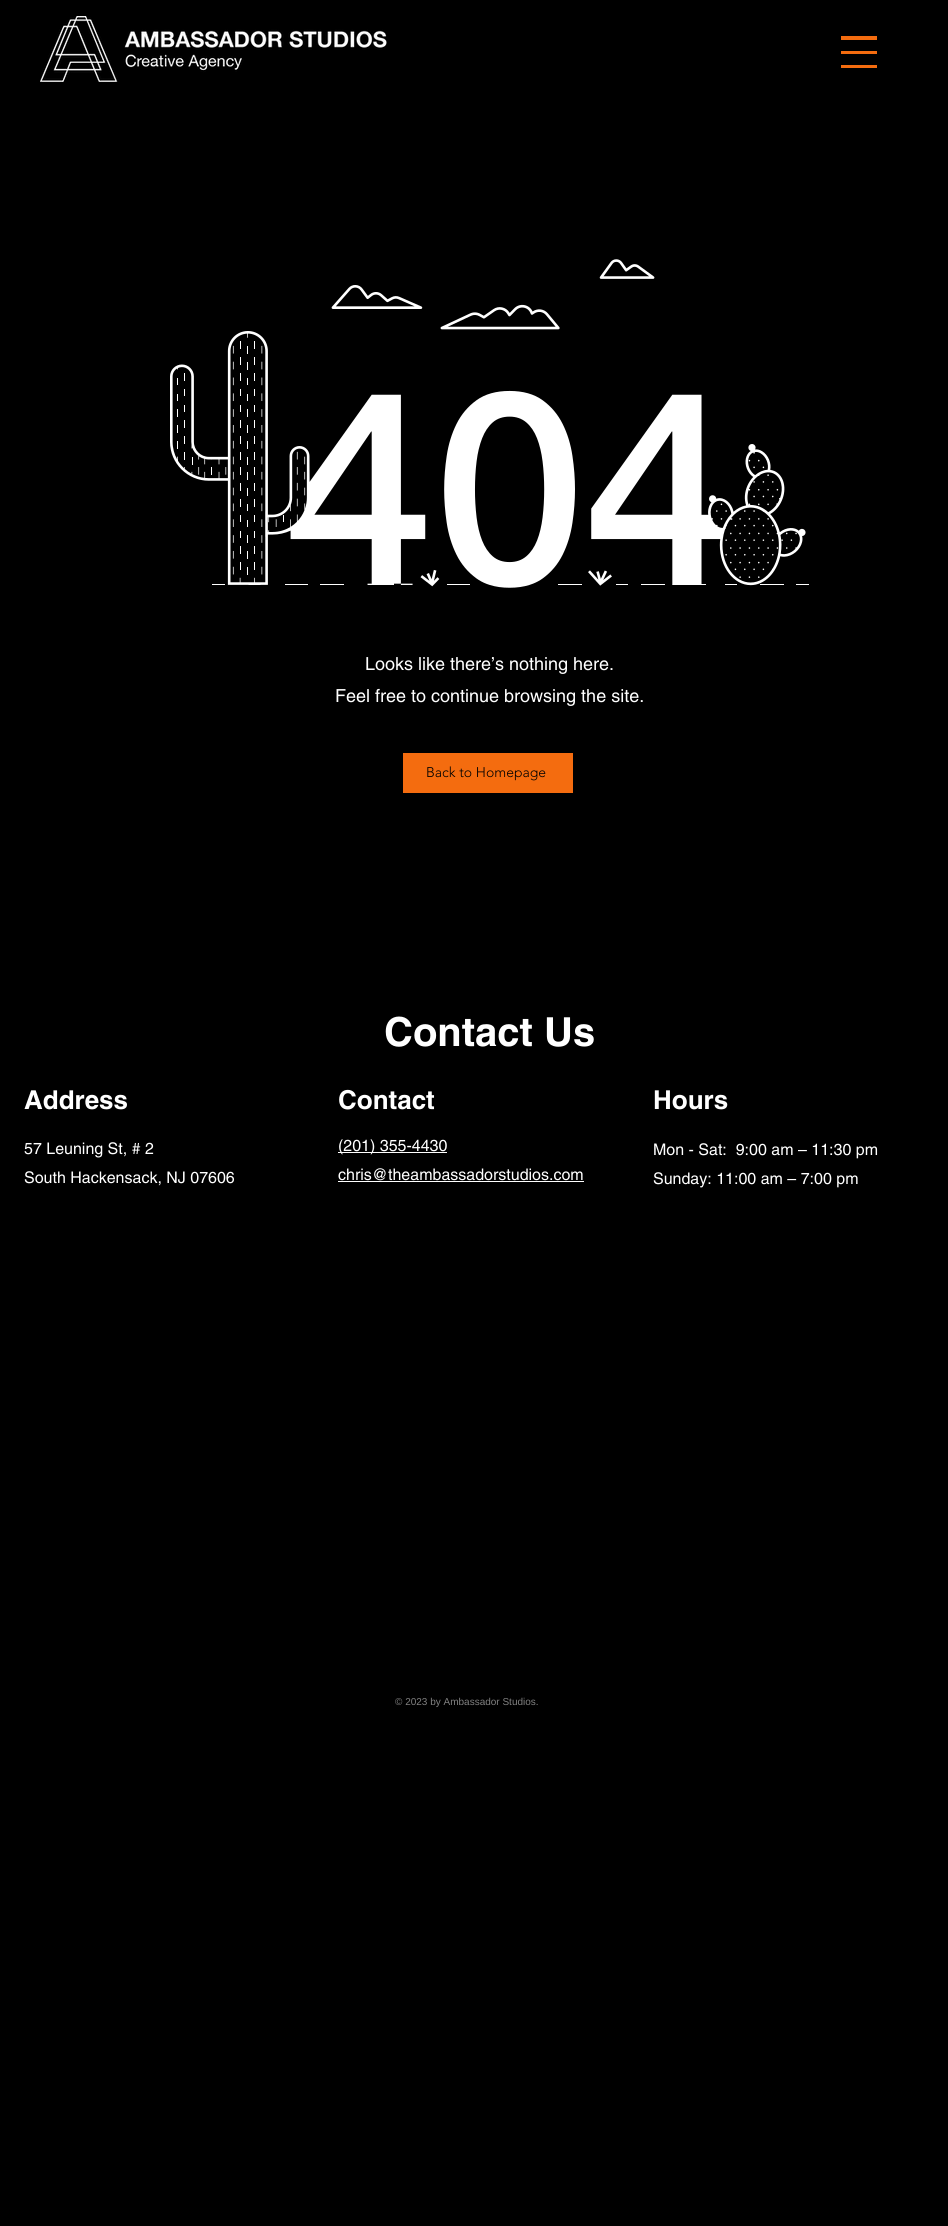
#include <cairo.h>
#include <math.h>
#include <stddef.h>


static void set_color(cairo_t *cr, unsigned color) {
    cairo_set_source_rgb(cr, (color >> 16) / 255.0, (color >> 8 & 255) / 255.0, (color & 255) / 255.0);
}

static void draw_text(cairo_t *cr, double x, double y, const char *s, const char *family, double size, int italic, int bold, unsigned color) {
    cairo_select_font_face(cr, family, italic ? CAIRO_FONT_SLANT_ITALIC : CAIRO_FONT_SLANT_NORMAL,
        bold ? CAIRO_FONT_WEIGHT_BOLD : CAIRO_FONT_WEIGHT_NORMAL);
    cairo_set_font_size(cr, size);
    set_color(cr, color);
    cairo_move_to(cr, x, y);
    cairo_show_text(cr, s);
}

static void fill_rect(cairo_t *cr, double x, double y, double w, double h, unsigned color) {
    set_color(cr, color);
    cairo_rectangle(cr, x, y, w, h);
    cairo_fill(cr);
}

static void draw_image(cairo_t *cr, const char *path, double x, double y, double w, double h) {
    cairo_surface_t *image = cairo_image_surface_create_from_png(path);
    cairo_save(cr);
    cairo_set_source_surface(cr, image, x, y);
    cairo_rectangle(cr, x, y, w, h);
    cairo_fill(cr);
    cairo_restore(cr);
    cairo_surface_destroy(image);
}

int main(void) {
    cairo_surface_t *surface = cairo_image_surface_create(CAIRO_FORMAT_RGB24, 948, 2226);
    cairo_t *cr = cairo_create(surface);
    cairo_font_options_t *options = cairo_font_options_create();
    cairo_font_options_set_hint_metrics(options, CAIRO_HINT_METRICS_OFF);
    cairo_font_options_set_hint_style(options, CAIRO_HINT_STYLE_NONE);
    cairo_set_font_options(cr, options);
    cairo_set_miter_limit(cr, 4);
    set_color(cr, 0x000000);
    cairo_paint(cr);
    draw_image(cr, "assets/img1.png", 40, 16, 347, 66);
    fill_rect(cr, 841, 36, 36, 4, 0xF46C0F);
    fill_rect(cr, 841, 51, 36, 3, 0xF46C0F);
    fill_rect(cr, 841, 65, 36, 3, 0xF46C0F);
    draw_image(cr, "assets/img2.png", 170, 259, 639, 329);
    draw_text(cr, 365, 670, "Looks like there’s nothing here.", "helvetica", 18, 0, 0, 0xFFFFFF);
    draw_text(cr, 335, 702, "Feel free to continue browsing the site.", "helvetica", 18, 0, 0, 0xFFFFFF);
    fill_rect(cr, 403, 753, 170, 40, 0xF46C0F);
    draw_text(cr, 426, 777, "Back to Homepage", "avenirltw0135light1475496 Light", 14, 0, 0, 0x000000);
    draw_text(cr, 384, 1046, "Contact Us", "helvetica", 40, 0, 1, 0xFFFFFF);
    draw_text(cr, 24, 1109, "Address", "helvetica", 26, 0, 1, 0xFFFFFF);
    draw_text(cr, 338, 1109, "Contact", "helvetica", 26, 0, 1, 0xFFFFFF);
    draw_text(cr, 653, 1109, "Hours", "helvetica", 26, 0, 1, 0xFFFFFF);
    draw_text(cr, 24, 1154, "57 Leuning St, # 2", "helvetica", 16, 0, 0, 0xFFFFFF);
    draw_text(cr, 24, 1183, "South Hackensack, NJ 07606", "helvetica", 16, 0, 0, 0xFFFFFF);
    fill_rect(cr, 338, 1152, 109, 1, 0xFFFFFF);
    draw_text(cr, 338, 1151, "(201) 355-4430", "helvetica", 16, 0, 0, 0xFFFFFF);
    draw_text(cr, 338, 1180, "chris@theambassadorstudios.com", "helvetica", 16, 0, 0, 0xFFFFFF);
    fill_rect(cr, 338, 1181, 246, 1, 0xFFFFFF);
    draw_text(cr, 653, 1155, "Mon - Sat:  9:00 am – 11:30 pm", "helvetica", 16, 0, 0, 0xFFFFFF);
    draw_text(cr, 653, 1184, "Sunday: 11:00 am – 7:00 pm", "helvetica", 16, 0, 0, 0xFFFFFF);
    draw_text(cr, 395, 1705, "© 2023 by Ambassador Studios.", "Liberation Sans", 10, 0, 0, 0x818181);
    cairo_surface_write_to_png(surface, "output.png");
    cairo_font_options_destroy(options);
    cairo_destroy(cr);
    cairo_surface_destroy(surface);
    return 0;
}
